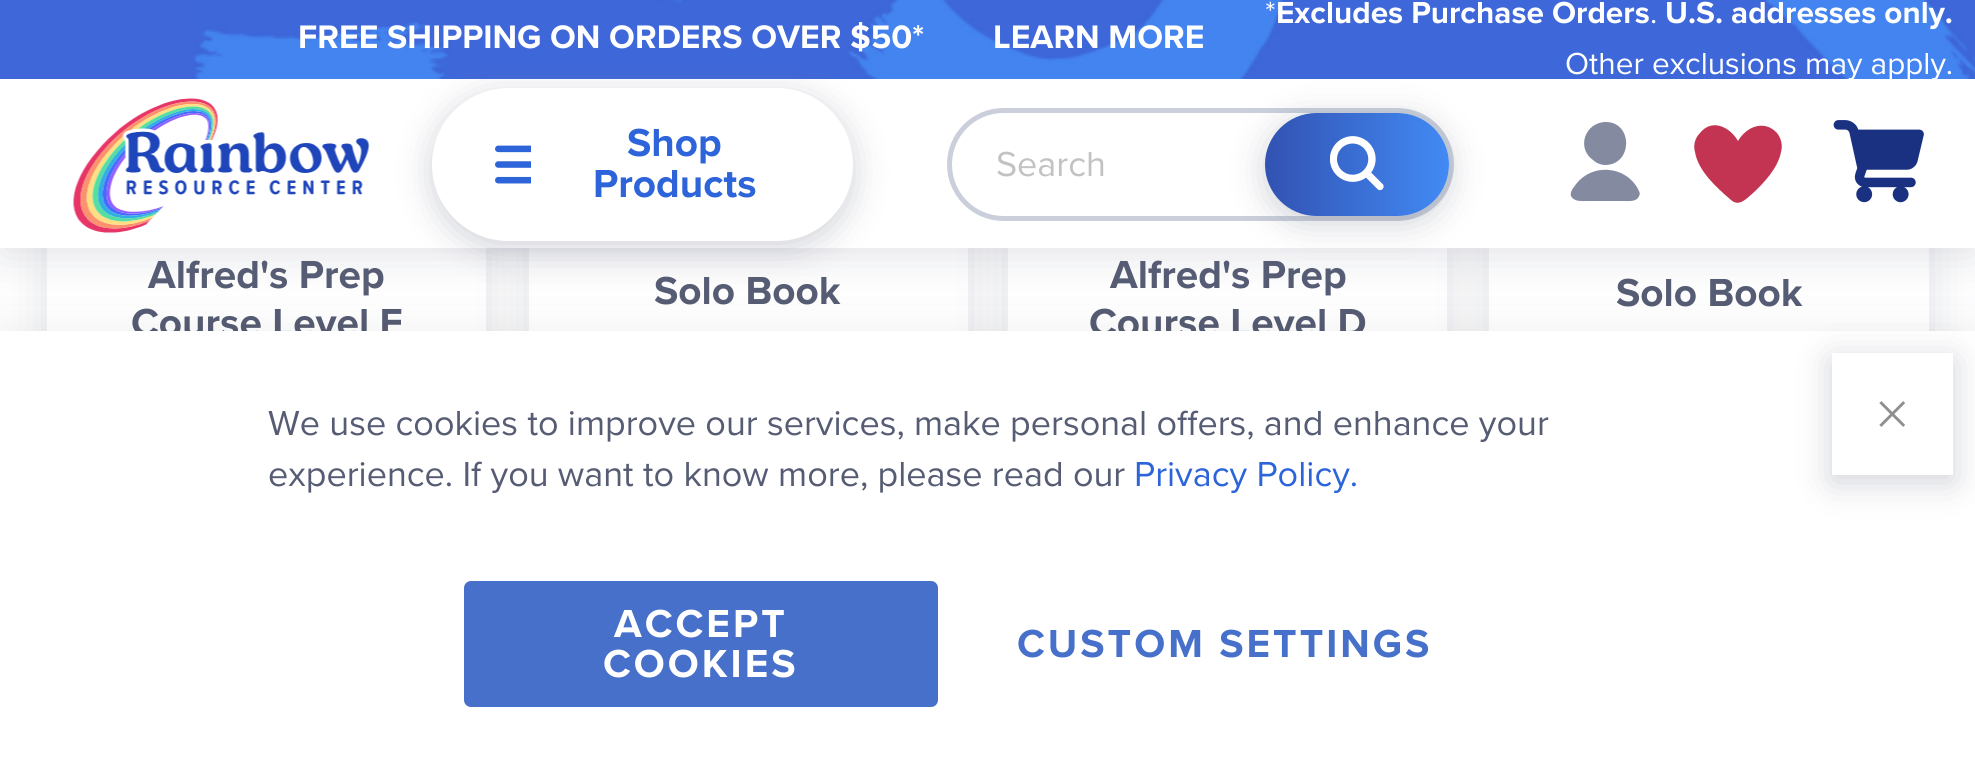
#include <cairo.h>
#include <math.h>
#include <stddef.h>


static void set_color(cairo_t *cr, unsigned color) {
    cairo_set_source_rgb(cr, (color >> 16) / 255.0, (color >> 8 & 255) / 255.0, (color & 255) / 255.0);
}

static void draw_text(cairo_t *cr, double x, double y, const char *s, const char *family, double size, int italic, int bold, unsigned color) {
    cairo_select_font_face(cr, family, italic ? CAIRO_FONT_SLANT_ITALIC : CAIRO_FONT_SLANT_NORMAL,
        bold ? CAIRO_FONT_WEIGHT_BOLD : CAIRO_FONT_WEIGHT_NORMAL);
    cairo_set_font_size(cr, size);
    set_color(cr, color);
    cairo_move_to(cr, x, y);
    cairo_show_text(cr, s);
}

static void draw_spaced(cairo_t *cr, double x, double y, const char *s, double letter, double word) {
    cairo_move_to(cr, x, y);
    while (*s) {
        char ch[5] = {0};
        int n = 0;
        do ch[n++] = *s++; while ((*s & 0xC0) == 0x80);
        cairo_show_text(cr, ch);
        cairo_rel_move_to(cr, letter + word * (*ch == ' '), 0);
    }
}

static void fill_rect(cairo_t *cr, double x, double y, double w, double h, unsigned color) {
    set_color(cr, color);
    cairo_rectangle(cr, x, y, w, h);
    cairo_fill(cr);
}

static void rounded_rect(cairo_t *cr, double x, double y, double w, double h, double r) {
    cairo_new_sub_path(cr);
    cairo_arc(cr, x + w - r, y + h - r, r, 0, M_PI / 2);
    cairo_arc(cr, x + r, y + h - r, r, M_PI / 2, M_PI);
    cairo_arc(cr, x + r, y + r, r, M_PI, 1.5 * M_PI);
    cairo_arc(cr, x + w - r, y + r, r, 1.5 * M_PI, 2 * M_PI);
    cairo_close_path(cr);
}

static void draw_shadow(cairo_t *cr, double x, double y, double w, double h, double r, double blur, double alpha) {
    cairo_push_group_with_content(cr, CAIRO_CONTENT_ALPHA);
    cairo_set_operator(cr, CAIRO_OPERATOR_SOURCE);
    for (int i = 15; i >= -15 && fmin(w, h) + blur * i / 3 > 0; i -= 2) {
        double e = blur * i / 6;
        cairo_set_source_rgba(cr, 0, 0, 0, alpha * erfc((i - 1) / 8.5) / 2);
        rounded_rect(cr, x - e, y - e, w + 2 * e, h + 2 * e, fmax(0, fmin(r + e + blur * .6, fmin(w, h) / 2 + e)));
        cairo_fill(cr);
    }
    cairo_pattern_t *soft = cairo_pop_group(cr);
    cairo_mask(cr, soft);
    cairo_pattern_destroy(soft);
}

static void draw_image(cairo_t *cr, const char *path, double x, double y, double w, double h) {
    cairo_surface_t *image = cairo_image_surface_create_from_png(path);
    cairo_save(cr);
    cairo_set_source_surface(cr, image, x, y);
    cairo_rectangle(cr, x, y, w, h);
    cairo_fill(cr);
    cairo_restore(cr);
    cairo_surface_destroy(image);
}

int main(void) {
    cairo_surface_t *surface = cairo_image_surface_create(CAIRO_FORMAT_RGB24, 1975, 784);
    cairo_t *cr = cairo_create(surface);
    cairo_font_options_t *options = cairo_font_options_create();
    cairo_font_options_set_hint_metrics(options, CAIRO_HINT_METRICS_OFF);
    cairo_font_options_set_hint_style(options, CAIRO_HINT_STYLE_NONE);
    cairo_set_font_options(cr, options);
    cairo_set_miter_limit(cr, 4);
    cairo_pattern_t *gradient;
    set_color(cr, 0xFFFFFF);
    cairo_paint(cr);
    set_color(cr, 0x767A8C);
    draw_shadow(cr, 45, -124, 443, 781, 56, 22.5, 0.2);
    fill_rect(cr, 47, 248, 439, 83, 0xFFFFFF);
    cairo_rectangle(cr, 46, -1, 441, 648);
    set_color(cr, 0xF0F2F5);
    cairo_stroke(cr);
    set_color(cr, 0x767A8C);
    draw_shadow(cr, 527, -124, 443, 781, 56, 22.5, 0.2);
    fill_rect(cr, 529, 248, 439, 83, 0xFFFFFF);
    cairo_rectangle(cr, 528, -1, 441, 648);
    set_color(cr, 0xF0F2F5);
    cairo_stroke(cr);
    set_color(cr, 0x767A8C);
    draw_shadow(cr, 1006, -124, 443, 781, 56, 22.5, 0.2);
    fill_rect(cr, 1008, 248, 439, 83, 0xFFFFFF);
    cairo_rectangle(cr, 1007, -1, 441, 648);
    set_color(cr, 0xF0F2F5);
    cairo_stroke(cr);
    set_color(cr, 0x767A8C);
    draw_shadow(cr, 1487, -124, 444, 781, 56, 22.5, 0.2);
    fill_rect(cr, 1489, 248, 440, 83, 0xFFFFFF);
    cairo_rectangle(cr, 1488, -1, 442, 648);
    set_color(cr, 0xF0F2F5);
    cairo_stroke(cr);
    set_color(cr, 0x767A8C);
    draw_shadow(cr, 0, 9, 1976, 248, 0, 22.5, 0.2);
    fill_rect(cr, 0, 79, 1975, 169, 0xFFFFFF);
    fill_rect(cr, 0, 0, 193, 79, 0x3F67D9);
    draw_image(cr, "assets/img1.png", 193, 0, 1782, 79);
    draw_text(cr, 298, 48, "FREE SHIPPING ON ORDERS OVER $50*", "Proxima Nova", 33.75, 0, 1, 0xFFFFFF);
    draw_text(cr, 993, 48, "LEARN MORE", "Proxima Nova", 33.75, 0, 1, 0xFFFFFF);
    draw_text(cr, 1265, 23, "*", "Proxima Nova", 31.5, 0, 0, 0xFFFFFF);
    draw_text(cr, 1276, 23, "Excludes Purchase Orders", "Proxima Nova", 31.5, 0, 1, 0xFFFFFF);
    draw_text(cr, 1650, 23, ".", "Proxima Nova", 31.5, 0, 0, 0xFFFFFF);
    draw_text(cr, 1665, 23, "U.S. addresses only.", "Proxima Nova", 31.5, 0, 1, 0xFFFFFF);
    draw_text(cr, 1565, 74, "Other exclusions may apply.", "Proxima Nova", 31.5, 0, 0, 0xFFFFFF);
    draw_image(cr, "assets/img2.png", 73, 98, 297, 135);
    set_color(cr, 0x767A8C);
    draw_shadow(cr, 432, 95, 421, 153, 76.5, 17, 0.33);
    set_color(cr, 0xFFFFFF);
    rounded_rect(cr, 432, 88, 421, 153, 76.5);
    cairo_fill(cr);
    draw_image(cr, "assets/img3.png", 495, 145, 36, 39);
    draw_text(cr, 627, 156, "Shop", "Proxima Nova", 40.5, 0, 1, 0x2D64D9);
    draw_text(cr, 593, 197, "Products", "Proxima Nova", 40.5, 0, 1, 0x2D64D9);
    rounded_rect(cr, 949.5, 110.5, 502, 108, 54);
    set_color(cr, 0xCACFDB);
    cairo_set_line_width(cr, 5);
    cairo_stroke(cr);
    draw_text(cr, 996, 176, "Search", "Proxima Nova", 36, 0, 0, 0xC2C2C2);
    set_color(cr, 0x767A8C);
    draw_shadow(cr, 1265, 119, 184, 104, 52, 17, 0.33);
    gradient = cairo_pattern_create_linear(1265, 164, 1449, 164);
    cairo_pattern_add_color_stop_rgba(gradient, 0, 0.196, 0.322, 0.698, 1);
    cairo_pattern_add_color_stop_rgba(gradient, 1, 0.259, 0.541, 0.961, 1);
    cairo_set_source(cr, gradient);
    cairo_pattern_destroy(gradient);
    rounded_rect(cr, 1265, 113, 184, 103, 51.5);
    cairo_fill(cr);
    draw_image(cr, "assets/img4.png", 1330, 136, 54, 55);
    set_color(cr, 0x848BA1);
    cairo_new_path(cr);
    cairo_move_to(cr, 1639, 191);
    cairo_curve_to(cr, 1627, 165, 1590, 162, 1574, 187);
    cairo_curve_to(cr, 1572, 189, 1570, 193, 1571, 196);
    cairo_curve_to(cr, 1574, 202, 1582, 201, 1587, 201);
    cairo_line_to(cr, 1624, 201);
    cairo_curve_to(cr, 1629, 201, 1637, 202, 1639, 196);
    cairo_curve_to(cr, 1640, 195, 1640, 193, 1639, 191);
    cairo_close_path(cr);
    cairo_move_to(cr, 1605, 165);
    cairo_curve_to(cr, 1633, 165, 1633, 122, 1606, 122);
    cairo_curve_to(cr, 1585, 122, 1576, 148, 1593, 160);
    cairo_curve_to(cr, 1596, 163, 1601, 165, 1605, 165);
    cairo_close_path(cr);
    cairo_fill(cr);
    set_color(cr, 0xC23451);
    cairo_new_path(cr);
    cairo_move_to(cr, 1731, 200);
    cairo_curve_to(cr, 1739, 207, 1746, 199, 1752, 194);
    cairo_curve_to(cr, 1764, 183, 1778, 168, 1781, 152);
    cairo_curve_to(cr, 1783, 145, 1781, 138, 1777, 133);
    cairo_curve_to(cr, 1764, 119, 1746, 127, 1738, 141);
    cairo_curve_to(cr, 1730, 127, 1712, 118, 1700, 133);
    cairo_curve_to(cr, 1695, 138, 1693, 145, 1695, 152);
    cairo_curve_to(cr, 1698, 171, 1717, 188, 1731, 200);
    cairo_close_path(cr);
    cairo_fill(cr);
    draw_image(cr, "assets/img5.png", 1833, 120, 91, 83);
    draw_text(cr, 148, 288, "Alfred's Prep", "Proxima Nova", 40.5, 0, 1, 0x565C73);
    draw_text(cr, 131, 336, "Course Level F", "Proxima Nova", 40.5, 0, 1, 0x565C73);
    draw_text(cr, 654, 304, "Solo Book", "Proxima Nova", 40.5, 0, 1, 0x565C73);
    draw_text(cr, 1110, 288, "Alfred's Prep", "Proxima Nova", 40.5, 0, 1, 0x565C73);
    draw_text(cr, 1089, 336, "Course Level D", "Proxima Nova", 40.5, 0, 1, 0x565C73);
    draw_text(cr, 1616, 306, "Solo Book", "Proxima Nova", 40.5, 0, 1, 0x565C73);
    set_color(cr, 0x000000);
    draw_shadow(cr, 0, 326, 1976, 455, 0, 20, 0.06);
    fill_rect(cr, 0, 331, 1975, 453, 0xFFFFFF);
    draw_text(cr, 268, 435, "We use cookies to improve our services, make personal offers, and enhance your", "Proxima Nova", 36, 0, 0, 0x565C73);
    draw_text(cr, 268, 486, "experience. If you want to know more, please read our", "Proxima Nova", 36, 0, 0, 0x565C73);
    draw_text(cr, 1134, 486, "Privacy Policy.", "Proxima Nova", 36, 0, 0, 0x2D64D9);
    set_color(cr, 0x4670C9);
    rounded_rect(cr, 464, 581, 474, 126, 7);
    cairo_fill(cr);
    cairo_select_font_face(cr, "Proxima Nova", CAIRO_FONT_SLANT_NORMAL, CAIRO_FONT_WEIGHT_BOLD);
    cairo_set_font_size(cr, 40.5);
    set_color(cr, 0xFFFFFF);
    draw_spaced(cr, 614, 637, "ACCEPT", 3, 0);
    draw_spaced(cr, 603, 677, "COOKIES", 3, 0);
    set_color(cr, 0x4670C9);
    draw_spaced(cr, 1017, 657, "CUSTOM SETTINGS", 3, 0);
    cairo_save(cr);
    cairo_set_fill_rule(cr, CAIRO_FILL_RULE_EVEN_ODD);
    cairo_new_path(cr);
    cairo_move_to(cr, 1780, 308);
    cairo_line_to(cr, 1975, 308);
    cairo_line_to(cr, 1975, 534);
    cairo_line_to(cr, 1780, 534);
    cairo_close_path(cr);
    cairo_move_to(cr, 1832, 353);
    cairo_line_to(cr, 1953, 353);
    cairo_line_to(cr, 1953, 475);
    cairo_line_to(cr, 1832, 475);
    cairo_close_path(cr);
    cairo_clip(cr);
    set_color(cr, 0x767A8C);
    draw_shadow(cr, 1832, 360, 121, 122, 0, 17, 0.33);
    cairo_restore(cr);
    draw_image(cr, "assets/img6.png", 1879, 401, 26, 26);
    cairo_surface_write_to_png(surface, "output.png");
    cairo_font_options_destroy(options);
    cairo_destroy(cr);
    cairo_surface_destroy(surface);
    return 0;
}
